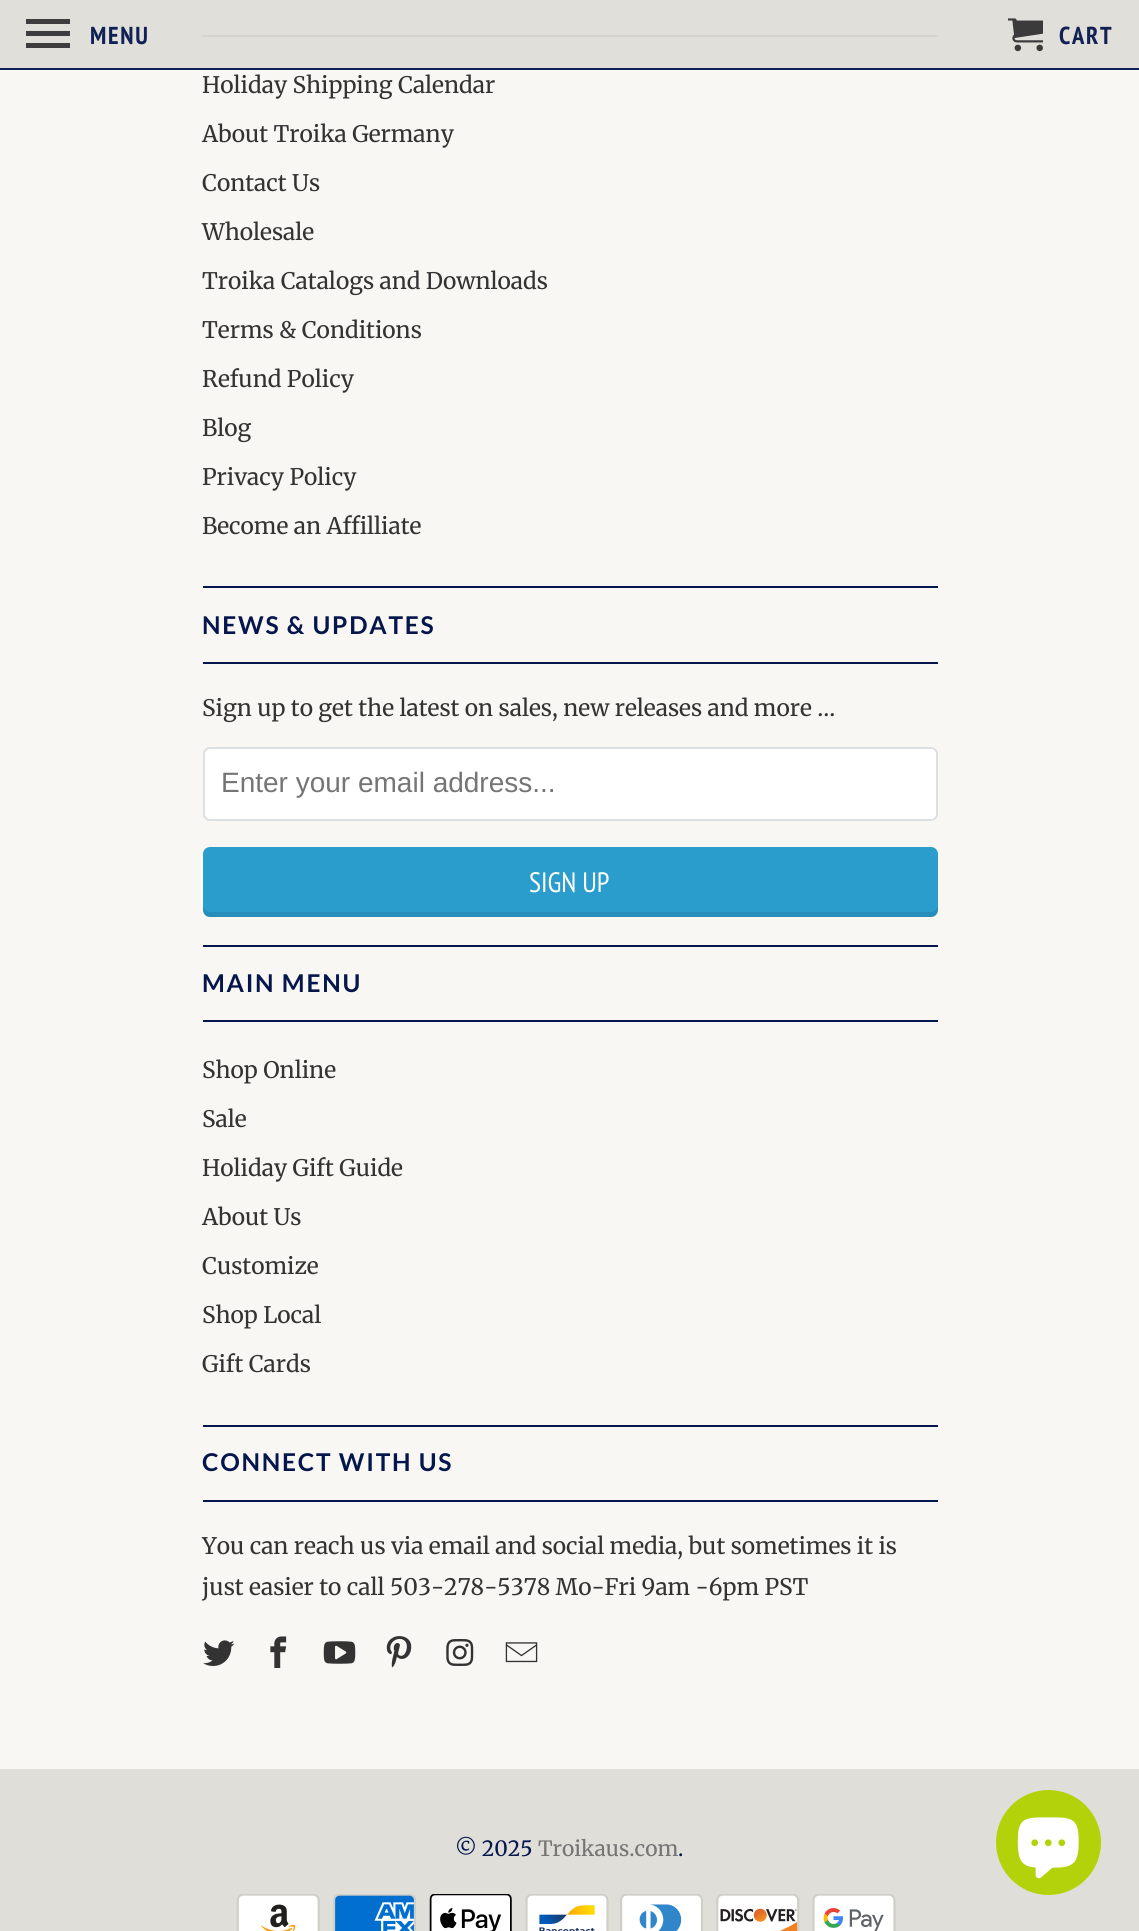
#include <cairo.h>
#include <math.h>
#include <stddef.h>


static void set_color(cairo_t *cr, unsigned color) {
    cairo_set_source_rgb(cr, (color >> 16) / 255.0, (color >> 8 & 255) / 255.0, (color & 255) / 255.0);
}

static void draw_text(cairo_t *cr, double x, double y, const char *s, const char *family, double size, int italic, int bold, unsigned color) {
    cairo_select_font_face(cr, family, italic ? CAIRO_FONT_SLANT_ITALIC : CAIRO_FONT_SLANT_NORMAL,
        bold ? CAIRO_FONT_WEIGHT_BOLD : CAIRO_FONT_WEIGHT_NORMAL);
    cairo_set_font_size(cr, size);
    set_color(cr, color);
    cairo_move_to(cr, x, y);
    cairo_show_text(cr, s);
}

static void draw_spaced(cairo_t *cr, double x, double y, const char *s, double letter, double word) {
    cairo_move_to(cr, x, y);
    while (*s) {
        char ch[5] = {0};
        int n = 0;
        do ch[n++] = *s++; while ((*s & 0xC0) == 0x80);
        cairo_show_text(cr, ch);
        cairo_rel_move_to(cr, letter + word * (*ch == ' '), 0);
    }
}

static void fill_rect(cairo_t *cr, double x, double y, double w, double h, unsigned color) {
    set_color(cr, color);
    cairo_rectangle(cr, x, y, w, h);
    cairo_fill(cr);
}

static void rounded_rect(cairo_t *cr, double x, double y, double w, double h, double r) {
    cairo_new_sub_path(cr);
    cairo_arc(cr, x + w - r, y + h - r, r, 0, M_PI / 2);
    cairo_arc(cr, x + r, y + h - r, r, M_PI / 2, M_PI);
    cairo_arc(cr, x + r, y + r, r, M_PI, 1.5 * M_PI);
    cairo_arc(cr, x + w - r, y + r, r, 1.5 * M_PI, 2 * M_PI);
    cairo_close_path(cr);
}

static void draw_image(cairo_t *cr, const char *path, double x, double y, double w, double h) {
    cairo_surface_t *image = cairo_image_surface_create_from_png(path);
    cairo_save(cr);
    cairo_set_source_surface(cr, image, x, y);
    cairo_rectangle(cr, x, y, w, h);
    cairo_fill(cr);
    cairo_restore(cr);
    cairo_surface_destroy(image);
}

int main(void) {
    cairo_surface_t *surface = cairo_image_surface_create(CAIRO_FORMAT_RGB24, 1139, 1931);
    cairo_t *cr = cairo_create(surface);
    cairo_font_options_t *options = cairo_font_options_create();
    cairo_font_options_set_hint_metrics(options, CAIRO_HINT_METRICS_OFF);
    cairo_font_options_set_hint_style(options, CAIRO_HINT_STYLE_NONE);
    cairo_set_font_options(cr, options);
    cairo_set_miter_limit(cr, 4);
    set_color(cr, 0xF9F7F3);
    cairo_paint(cr);
    fill_rect(cr, 0, 68, 1139, 2, 0x112155);
    fill_rect(cr, 0, 0, 1139, 68, 0xE1DFD9);
    set_color(cr, 0x3D3D3D);
    cairo_new_path(cr);
    cairo_move_to(cr, 26, 48);
    cairo_line_to(cr, 70, 48);
    cairo_line_to(cr, 70, 43);
    cairo_line_to(cr, 26, 43);
    cairo_close_path(cr);
    cairo_move_to(cr, 26, 36);
    cairo_line_to(cr, 70, 36);
    cairo_line_to(cr, 70, 31);
    cairo_line_to(cr, 26, 31);
    cairo_close_path(cr);
    cairo_move_to(cr, 26, 19);
    cairo_line_to(cr, 26, 24);
    cairo_line_to(cr, 70, 24);
    cairo_line_to(cr, 70, 19);
    cairo_close_path(cr);
    cairo_fill(cr);
    cairo_select_font_face(cr, "PT Sans Narrow", CAIRO_FONT_SLANT_NORMAL, CAIRO_FONT_WEIGHT_BOLD);
    cairo_set_font_size(cr, 24.5);
    set_color(cr, 0x112155);
    draw_spaced(cr, 90, 44, "MENU", 1.75, 0);
    draw_image(cr, "assets/img1.png", 1008, 18, 35, 34);
    draw_spaced(cr, 1059, 44, "CART", 1.75, 0);
    fill_rect(cr, 203, 35, 735, 2, 0xD5D4D1);
    draw_text(cr, 202, 93, "Holiday Shipping Calendar", "Merriweather", 22.75, 0, 0, 0x333333);
    draw_text(cr, 202, 142, "About Troika Germany", "Merriweather", 22.75, 0, 0, 0x333333);
    draw_text(cr, 202, 191, "Contact Us", "Merriweather", 22.75, 0, 0, 0x333333);
    draw_text(cr, 202, 240, "Wholesale", "Merriweather", 22.75, 0, 0, 0x333333);
    draw_text(cr, 202, 289, "Troika Catalogs and Downloads", "Merriweather", 22.75, 0, 0, 0x333333);
    draw_text(cr, 202, 338, "Terms & Conditions", "Merriweather", 22.75, 0, 0, 0x333333);
    draw_text(cr, 202, 387, "Refund Policy", "Merriweather", 22.75, 0, 0, 0x333333);
    draw_text(cr, 202, 436, "Blog", "Merriweather", 22.75, 0, 0, 0x333333);
    draw_text(cr, 202, 485, "Privacy Policy", "Merriweather", 22.75, 0, 0, 0x333333);
    draw_text(cr, 202, 534, "Become an Affilliate", "Merriweather", 22.75, 0, 0, 0x333333);
    fill_rect(cr, 203, 586, 735, 2, 0x05164D);
    fill_rect(cr, 203, 662, 735, 2, 0x05164D);
    cairo_select_font_face(cr, "Lato", CAIRO_FONT_SLANT_NORMAL, CAIRO_FONT_WEIGHT_BOLD);
    cairo_set_font_size(cr, 24.5);
    draw_spaced(cr, 202, 634, "NEWS & UPDATES", 1.75, 0);
    draw_text(cr, 202, 716, "Sign up to get the latest on sales, new releases and more …", "Merriweather", 22.75, 0, 0, 0x333333);
    set_color(cr, 0xFFFFFF);
    rounded_rect(cr, 204, 748, 733, 72, 6);
    cairo_fill_preserve(cr);
    set_color(cr, 0xDCE0E0);
    cairo_stroke(cr);
    draw_text(cr, 221, 792, "Enter your email address...", "Liberation Sans", 28, 0, 0, 0x757575);
    set_color(cr, 0x2A9DCC);
    rounded_rect(cr, 203, 847, 735, 70, 7);
    cairo_fill(cr);
    cairo_set_source_rgba(cr, 0, 0, 0, 0.1);
    cairo_new_path(cr);
    cairo_move_to(cr, 203, 905);
    cairo_curve_to(cr, 203, 910, 203, 917, 210, 917);
    cairo_line_to(cr, 931, 917);
    cairo_curve_to(cr, 938, 917, 938, 910, 938, 905);
    cairo_curve_to(cr, 938, 909, 935, 912, 931, 912);
    cairo_line_to(cr, 210, 912);
    cairo_curve_to(cr, 206, 912, 203, 909, 203, 905);
    cairo_close_path(cr);
    cairo_fill(cr);
    draw_text(cr, 529, 892, "SIGN UP", "PT Sans Narrow", 28, 0, 0, 0xFFFFFF);
    fill_rect(cr, 203, 945, 735, 2, 0x05164D);
    fill_rect(cr, 203, 1020, 735, 2, 0x05164D);
    cairo_select_font_face(cr, "Lato", CAIRO_FONT_SLANT_NORMAL, CAIRO_FONT_WEIGHT_BOLD);
    cairo_set_font_size(cr, 24.5);
    draw_spaced(cr, 202, 992, "MAIN MENU", 1.75, 0);
    draw_text(cr, 202, 1078, "Shop Online", "Merriweather", 22.75, 0, 0, 0x333333);
    draw_text(cr, 202, 1127, "Sale", "Merriweather", 22.75, 0, 0, 0x333333);
    draw_text(cr, 202, 1176, "Holiday Gift Guide", "Merriweather", 22.75, 0, 0, 0x333333);
    draw_text(cr, 202, 1225, "About Us", "Merriweather", 22.75, 0, 0, 0x333333);
    draw_text(cr, 202, 1274, "Customize", "Merriweather", 22.75, 0, 0, 0x333333);
    draw_text(cr, 202, 1323, "Shop Local", "Merriweather", 22.75, 0, 0, 0x333333);
    draw_text(cr, 202, 1372, "Gift Cards", "Merriweather", 22.75, 0, 0, 0x333333);
    fill_rect(cr, 203, 1425, 735, 2, 0x05164D);
    fill_rect(cr, 203, 1500, 735, 2, 0x05164D);
    cairo_select_font_face(cr, "Lato", CAIRO_FONT_SLANT_NORMAL, CAIRO_FONT_WEIGHT_BOLD);
    cairo_set_font_size(cr, 24.5);
    draw_spaced(cr, 202, 1471, "CONNECT WITH US", 1.75, 0);
    draw_text(cr, 202, 1554, "You can reach us via email and social media, but sometimes it is", "Merriweather", 22.75, 0, 0, 0x333333);
    draw_text(cr, 202, 1595, "just easier to call 503-278-5378 Mo-Fri 9am -6pm PST", "Merriweather", 22.75, 0, 0, 0x333333);
    draw_image(cr, "assets/img2.png", 203, 1640, 32, 26);
    draw_image(cr, "assets/img3.png", 270, 1636, 17, 32);
    draw_image(cr, "assets/img4.png", 323, 1641, 33, 23);
    draw_image(cr, "assets/img5.png", 386, 1636, 26, 32);
    draw_image(cr, "assets/img6.png", 446, 1639, 28, 27);
    draw_image(cr, "assets/img7.png", 505, 1642, 33, 21);
    fill_rect(cr, 0, 1769, 1139, 162, 0xE0DED8);
    draw_text(cr, 455, 1856, "© 2025", "Merriweather", 21, 0, 0, 0x05164D);
    draw_text(cr, 538, 1856, "Troikaus.com", "Merriweather", 21, 0, 0, 0x757575);
    draw_text(cr, 678, 1856, ".", "Merriweather", 21, 0, 0, 0x05164D);
    draw_image(cr, "assets/img8.png", 236, 1894, 84, 37);
    draw_image(cr, "assets/img9.png", 333, 1894, 83, 37);
    draw_image(cr, "assets/img10.png", 429, 1894, 83, 37);
    draw_image(cr, "assets/img11.png", 525, 1894, 84, 37);
    draw_image(cr, "assets/img12.png", 620, 1894, 83, 37);
    draw_image(cr, "assets/img13.png", 716, 1894, 84, 37);
    draw_image(cr, "assets/img14.png", 812, 1894, 84, 37);
    set_color(cr, 0xB4D20A);
    cairo_arc(cr, 1048.5, 1842.5, 52.5, 0, 2 * M_PI);
    cairo_fill(cr);
    draw_image(cr, "assets/img15.png", 1017, 1817, 62, 62);
    cairo_surface_write_to_png(surface, "output.png");
    cairo_font_options_destroy(options);
    cairo_destroy(cr);
    cairo_surface_destroy(surface);
    return 0;
}
